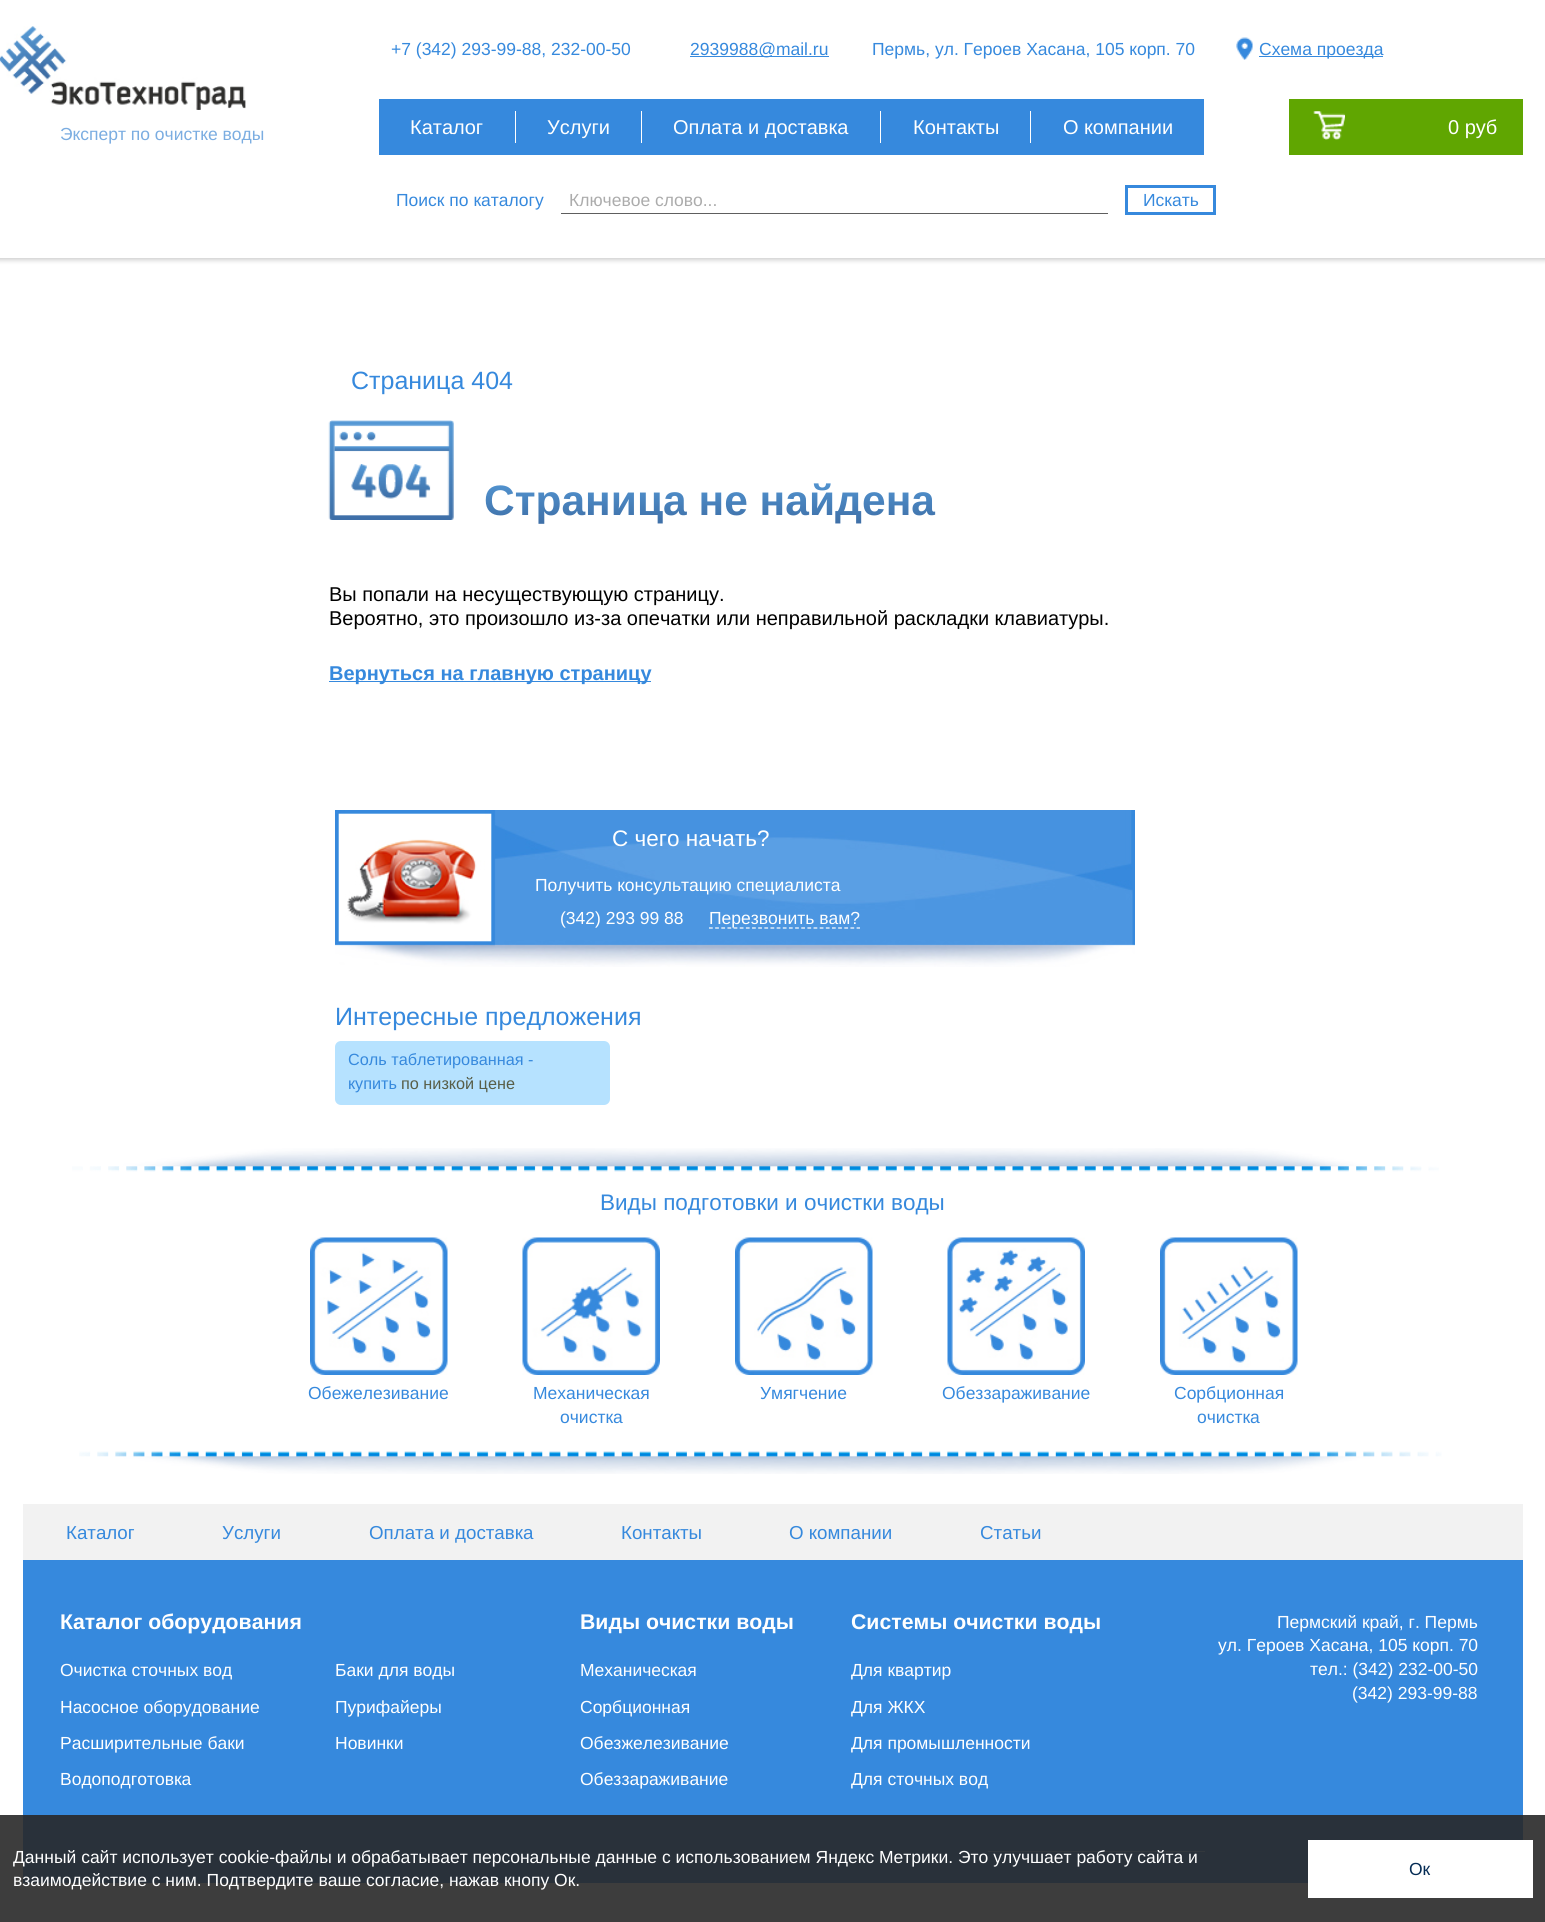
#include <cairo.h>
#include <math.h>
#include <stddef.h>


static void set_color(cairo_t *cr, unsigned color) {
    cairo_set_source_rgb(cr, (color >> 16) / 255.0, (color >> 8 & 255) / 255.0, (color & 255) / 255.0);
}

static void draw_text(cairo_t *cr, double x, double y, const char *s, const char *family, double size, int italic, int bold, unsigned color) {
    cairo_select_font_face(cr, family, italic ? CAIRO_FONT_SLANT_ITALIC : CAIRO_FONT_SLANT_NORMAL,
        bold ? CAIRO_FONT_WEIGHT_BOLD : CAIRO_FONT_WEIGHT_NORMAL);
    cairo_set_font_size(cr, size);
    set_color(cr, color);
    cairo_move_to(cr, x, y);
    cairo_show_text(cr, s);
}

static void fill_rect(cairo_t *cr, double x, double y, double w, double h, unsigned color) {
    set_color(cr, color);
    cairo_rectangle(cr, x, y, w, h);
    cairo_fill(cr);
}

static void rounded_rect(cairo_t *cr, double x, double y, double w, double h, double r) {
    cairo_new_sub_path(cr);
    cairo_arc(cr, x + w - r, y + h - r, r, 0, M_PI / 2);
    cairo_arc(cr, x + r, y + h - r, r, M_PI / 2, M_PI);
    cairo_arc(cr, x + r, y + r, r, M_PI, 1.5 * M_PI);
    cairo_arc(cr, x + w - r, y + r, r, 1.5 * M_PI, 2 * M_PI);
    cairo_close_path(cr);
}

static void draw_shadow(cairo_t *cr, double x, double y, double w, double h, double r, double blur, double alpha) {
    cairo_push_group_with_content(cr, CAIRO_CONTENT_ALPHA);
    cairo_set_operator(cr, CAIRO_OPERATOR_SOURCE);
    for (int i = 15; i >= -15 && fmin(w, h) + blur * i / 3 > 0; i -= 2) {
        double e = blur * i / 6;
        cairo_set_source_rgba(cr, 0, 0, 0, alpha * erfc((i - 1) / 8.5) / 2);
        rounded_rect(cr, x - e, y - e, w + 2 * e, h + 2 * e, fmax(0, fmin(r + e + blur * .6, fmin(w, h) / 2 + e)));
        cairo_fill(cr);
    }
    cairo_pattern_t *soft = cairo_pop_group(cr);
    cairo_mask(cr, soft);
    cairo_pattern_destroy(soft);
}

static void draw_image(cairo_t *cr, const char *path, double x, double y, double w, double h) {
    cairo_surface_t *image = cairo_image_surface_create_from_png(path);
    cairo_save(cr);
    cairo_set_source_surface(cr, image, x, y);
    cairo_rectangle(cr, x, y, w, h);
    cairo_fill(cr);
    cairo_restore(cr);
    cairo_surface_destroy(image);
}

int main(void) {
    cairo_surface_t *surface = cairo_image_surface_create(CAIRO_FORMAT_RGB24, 1545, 1922);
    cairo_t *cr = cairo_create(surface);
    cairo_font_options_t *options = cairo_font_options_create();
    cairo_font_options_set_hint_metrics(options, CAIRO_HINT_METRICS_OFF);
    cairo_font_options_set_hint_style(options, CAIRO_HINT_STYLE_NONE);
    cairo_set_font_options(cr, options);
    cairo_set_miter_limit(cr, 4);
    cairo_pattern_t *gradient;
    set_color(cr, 0xFFFFFF);
    cairo_paint(cr);
    cairo_save(cr);
    cairo_set_fill_rule(cr, CAIRO_FILL_RULE_EVEN_ODD);
    cairo_new_path(cr);
    cairo_move_to(cr, 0, 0);
    cairo_line_to(cr, 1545, 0);
    cairo_line_to(cr, 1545, 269);
    cairo_line_to(cr, 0, 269);
    cairo_close_path(cr);
    cairo_move_to(cr, -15, 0);
    cairo_line_to(cr, 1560, 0);
    cairo_line_to(cr, 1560, 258);
    cairo_line_to(cr, -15, 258);
    cairo_close_path(cr);
    cairo_clip(cr);
    set_color(cr, 0x000000);
    draw_shadow(cr, -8, 3, 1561, 257, 0, 2.5, 0.2);
    cairo_restore(cr);
    draw_image(cr, "assets/img1.png", 0, 26, 246, 84);
    draw_text(cr, 60, 140, "Эксперт по очистке воды", "Liberation Sans", 17.5, 0, 0, 0x7BADE1);
    draw_text(cr, 391, 55, "+7 (342) 293-99-88, 232-00-50", "Liberation Sans", 17.5, 0, 0, 0x3689DD);
    fill_rect(cr, 690, 56, 139, 1, 0x3689DD);
    draw_text(cr, 690, 55, "2939988@mail.ru", "Liberation Sans", 17.5, 0, 0, 0x3689DD);
    draw_text(cr, 872, 55, "Пермь, ул. Героев Хасана, 105 корп. 70", "Liberation Sans", 17.5, 0, 0, 0x3689DD);
    draw_image(cr, "assets/img2.png", 1236, 37, 17, 23);
    fill_rect(cr, 1259, 56, 124, 1, 0x3689DD);
    draw_text(cr, 1259, 55, "Схема проезда", "Liberation Sans", 17.5, 0, 0, 0x3689DD);
    fill_rect(cr, 379, 99, 825, 56, 0x3689DD);
    fill_rect(cr, 515, 111, 1, 32, 0xFFFFFF);
    draw_text(cr, 410, 134, "Каталог", "Liberation Sans", 20, 0, 0, 0xFFFFFF);
    fill_rect(cr, 641, 111, 1, 32, 0xFFFFFF);
    draw_text(cr, 547, 134, "Услуги", "Liberation Sans", 20, 0, 0, 0xFFFFFF);
    fill_rect(cr, 880, 111, 1, 32, 0xFFFFFF);
    draw_text(cr, 673, 134, "Оплата и доставка", "Liberation Sans", 20, 0, 0, 0xFFFFFF);
    fill_rect(cr, 1030, 111, 1, 32, 0xFFFFFF);
    draw_text(cr, 913, 134, "Контакты", "Liberation Sans", 20, 0, 0, 0xFFFFFF);
    draw_text(cr, 1063, 134, "О компании", "Liberation Sans", 20, 0, 0, 0xFFFFFF);
    fill_rect(cr, 1289, 99, 234, 56, 0x60A601);
    draw_image(cr, "assets/img3.png", 1313, 111, 32, 29);
    draw_text(cr, 1448, 134, "0 руб", "Liberation Sans", 20, 0, 0, 0xFFFFFF);
    draw_text(cr, 396, 206, "Поиск по каталогу", "Liberation Sans", 17.5, 0, 0, 0x3689DD);
    fill_rect(cr, 561, 213, 547, 1, 0x5E5E5E);
    draw_text(cr, 569, 206, "Ключевое слово...", "Liberation Sans", 17.5, 0, 0, 0xACACAC);
    cairo_rectangle(cr, 1126.5, 186.5, 88, 27);
    set_color(cr, 0x3689DD);
    cairo_set_line_width(cr, 3);
    cairo_stroke(cr);
    draw_text(cr, 1143, 206, "Искать", "Liberation Sans", 17.5, 0, 0, 0x3689DD);
    draw_text(cr, 351, 389, "Страница 404", "Liberation Sans", 25, 0, 0, 0x3689DD);
    draw_image(cr, "assets/img4.png", 328, 420, 126, 100);
    cairo_select_font_face(cr, "Liberation Sans", CAIRO_FONT_SLANT_NORMAL, CAIRO_FONT_WEIGHT_BOLD);
    cairo_set_font_size(cr, 42.5);
    gradient = cairo_pattern_create_linear(697, 476, 697, 524);
    cairo_pattern_add_color_stop_rgba(gradient, 0, 0.333, 0.6, 0.839, 1);
    cairo_pattern_add_color_stop_rgba(gradient, 1, 0.243, 0.435, 0.655, 1);
    cairo_set_source(cr, gradient);
    cairo_pattern_destroy(gradient);
    cairo_move_to(cr, 484, 515);
    cairo_show_text(cr, "Страница не найдена");
    draw_text(cr, 329, 601, "Вы попали на несуществующую страницу.", "Liberation Sans", 20, 0, 0, 0x000000);
    draw_text(cr, 329, 625, "Вероятно, это произошло из-за опечатки или неправильной раскладки клавиатуры.", "Liberation Sans", 20, 0, 0, 0x000000);
    fill_rect(cr, 329, 681, 322, 1, 0x3689DD);
    draw_text(cr, 329, 680, "Вернуться на главную страницу", "Liberation Sans", 20, 0, 1, 0x3689DD);
    draw_image(cr, "assets/img5.png", 335, 810, 800, 157);
    draw_text(cr, 612, 846, "С чего начать?", "Liberation Sans", 22.5, 0, 0, 0xFFFFFF);
    draw_text(cr, 535, 891, "Получить консультацию специалиста", "Liberation Sans", 17.5, 0, 0, 0xFFFFFF);
    draw_text(cr, 560, 924, "(342) 293 99 88", "Liberation Sans", 17.5, 0, 0, 0xFFFFFF);
    cairo_new_path(cr);
    cairo_move_to(cr, 709, 928);
    cairo_line_to(cr, 860, 928);
    cairo_set_line_width(cr, 1.2);
    cairo_set_dash(cr, (double[]){3.75, 2.4}, 2, 0);
    cairo_stroke(cr);
    draw_text(cr, 709, 924, "Перезвонить вам?", "Liberation Sans", 17.5, 0, 0, 0xFFFFFF);
    draw_text(cr, 335, 1025, "Интересные предложения", "Liberation Sans", 25, 0, 0, 0x3689DD);
    set_color(cr, 0xB6E2FF);
    rounded_rect(cr, 335, 1041, 275, 64, 6);
    cairo_fill(cr);
    draw_text(cr, 348, 1065, "Соль таблетированная -", "Liberation Sans", 16.25, 0, 0, 0x3689DD);
    draw_text(cr, 348, 1089, "купить", "Liberation Sans", 16.25, 0, 0, 0x3689DD);
    draw_text(cr, 401, 1089, "по низкой цене", "Liberation Sans", 16.25, 0, 0, 0x585E48);
    draw_image(cr, "assets/img6.png", 72, 1148, 1367, 24);
    draw_text(cr, 600, 1210, "Виды подготовки и очистки воды", "Liberation Sans", 22.5, 0, 0, 0x3689DD);
    draw_image(cr, "assets/img7.png", 310, 1237, 138, 138);
    draw_text(cr, 308, 1399, "Обежелезивание", "Liberation Sans", 17.5, 0, 0, 0x3689DD);
    draw_image(cr, "assets/img8.png", 522, 1237, 138, 138);
    draw_text(cr, 533, 1399, "Механическая", "Liberation Sans", 17.5, 0, 0, 0x3689DD);
    draw_text(cr, 560, 1423, "очистка", "Liberation Sans", 17.5, 0, 0, 0x3689DD);
    draw_image(cr, "assets/img9.png", 735, 1237, 138, 138);
    draw_text(cr, 760, 1399, "Умягчение", "Liberation Sans", 17.5, 0, 0, 0x3689DD);
    draw_image(cr, "assets/img10.png", 947, 1237, 138, 138);
    draw_text(cr, 942, 1399, "Обеззараживание", "Liberation Sans", 17.5, 0, 0, 0x3689DD);
    draw_image(cr, "assets/img11.png", 1160, 1237, 138, 138);
    draw_text(cr, 1174, 1399, "Сорбционная", "Liberation Sans", 17.5, 0, 0, 0x3689DD);
    draw_text(cr, 1197, 1423, "очистка", "Liberation Sans", 17.5, 0, 0, 0x3689DD);
    draw_image(cr, "assets/img12.png", 79, 1451, 1363, 23);
    fill_rect(cr, 23, 1504, 1500, 56, 0xF2F2F2);
    draw_text(cr, 66, 1539, "Каталог", "Liberation Sans", 18.75, 0, 0, 0x3689DD);
    draw_text(cr, 222, 1539, "Услуги", "Liberation Sans", 18.75, 0, 0, 0x3689DD);
    draw_text(cr, 369, 1539, "Оплата и доставка", "Liberation Sans", 18.75, 0, 0, 0x3689DD);
    draw_text(cr, 621, 1539, "Контакты", "Liberation Sans", 18.75, 0, 0, 0x3689DD);
    draw_text(cr, 789, 1539, "О компании", "Liberation Sans", 18.75, 0, 0, 0x3689DD);
    draw_text(cr, 980, 1539, "Статьи", "Liberation Sans", 18.75, 0, 0, 0x3689DD);
    fill_rect(cr, 23, 1560, 1500, 323, 0x3689DD);
    draw_text(cr, 60, 1629, "Каталог оборудования", "Liberation Sans", 21.25, 0, 1, 0xFFFFFF);
    draw_text(cr, 60, 1676, "Очистка сточных вод", "Liberation Sans", 17.5, 0, 0, 0xFFFFFF);
    draw_text(cr, 60, 1713, "Насосное оборудование", "Liberation Sans", 17.5, 0, 0, 0xFFFFFF);
    draw_text(cr, 60, 1749, "Расширительные баки", "Liberation Sans", 17.5, 0, 0, 0xFFFFFF);
    draw_text(cr, 60, 1785, "Водоподготовка", "Liberation Sans", 17.5, 0, 0, 0xFFFFFF);
    draw_text(cr, 335, 1676, "Баки для воды", "Liberation Sans", 17.5, 0, 0, 0xFFFFFF);
    draw_text(cr, 335, 1713, "Пурифайеры", "Liberation Sans", 17.5, 0, 0, 0xFFFFFF);
    draw_text(cr, 335, 1749, "Новинки", "Liberation Sans", 17.5, 0, 0, 0xFFFFFF);
    draw_text(cr, 580, 1629, "Виды очистки воды", "Liberation Sans", 21.25, 0, 1, 0xFFFFFF);
    draw_text(cr, 580, 1676, "Механическая", "Liberation Sans", 17.5, 0, 0, 0xFFFFFF);
    draw_text(cr, 580, 1713, "Сорбционная", "Liberation Sans", 17.5, 0, 0, 0xFFFFFF);
    draw_text(cr, 580, 1749, "Обезжелезивание", "Liberation Sans", 17.5, 0, 0, 0xFFFFFF);
    draw_text(cr, 580, 1785, "Обеззараживание", "Liberation Sans", 17.5, 0, 0, 0xFFFFFF);
    draw_text(cr, 851, 1629, "Системы очистки воды", "Liberation Sans", 21.25, 0, 1, 0xFFFFFF);
    draw_text(cr, 851, 1676, "Для квартир", "Liberation Sans", 17.5, 0, 0, 0xFFFFFF);
    draw_text(cr, 851, 1713, "Для ЖКХ", "Liberation Sans", 17.5, 0, 0, 0xFFFFFF);
    draw_text(cr, 851, 1749, "Для промышленности", "Liberation Sans", 17.5, 0, 0, 0xFFFFFF);
    draw_text(cr, 851, 1785, "Для сточных вод", "Liberation Sans", 17.5, 0, 0, 0xFFFFFF);
    draw_text(cr, 1277, 1628, "Пермский край, г. Пермь", "Liberation Sans", 17.5, 0, 0, 0xFFFFFF);
    draw_text(cr, 1218, 1651, "ул. Героев Хасана, 105 корп. 70", "Liberation Sans", 17.5, 0, 0, 0xFFFFFF);
    draw_text(cr, 1310, 1675, "тел.: (342) 232-00-50", "Liberation Sans", 17.5, 0, 0, 0xFFFFFF);
    draw_text(cr, 1352, 1699, "(342) 293-99-88", "Liberation Sans", 17.5, 0, 0, 0xFFFFFF);
    fill_rect(cr, 988, 1851, 217, 1, 0x9CCDFF);
    cairo_set_source_rgba(cr, 0.157, 0.157, 0.157, 0.9);
    cairo_rectangle(cr, 0, 1815, 1545, 107);
    cairo_fill(cr);
    draw_text(cr, 13, 1863, "Данный сайт использует cookie-файлы и обрабатывает персональные данные с использованием Яндекс Метрики. Это улучшает работу сайта и", "Liberation Sans", 17.5, 0, 0, 0xFFFFFF);
    draw_text(cr, 13, 1886, "взаимодействие с ним. Подтвердите ваше согласие, нажав кнопу Ок.", "Liberation Sans", 17.5, 0, 0, 0xFFFFFF);
    fill_rect(cr, 1308, 1840, 225, 58, 0xFFFFFF);
    draw_text(cr, 1409, 1875, "Ок", "Liberation Sans", 17.5, 0, 0, 0x042B54);
    cairo_surface_write_to_png(surface, "output.png");
    cairo_font_options_destroy(options);
    cairo_destroy(cr);
    cairo_surface_destroy(surface);
    return 0;
}
